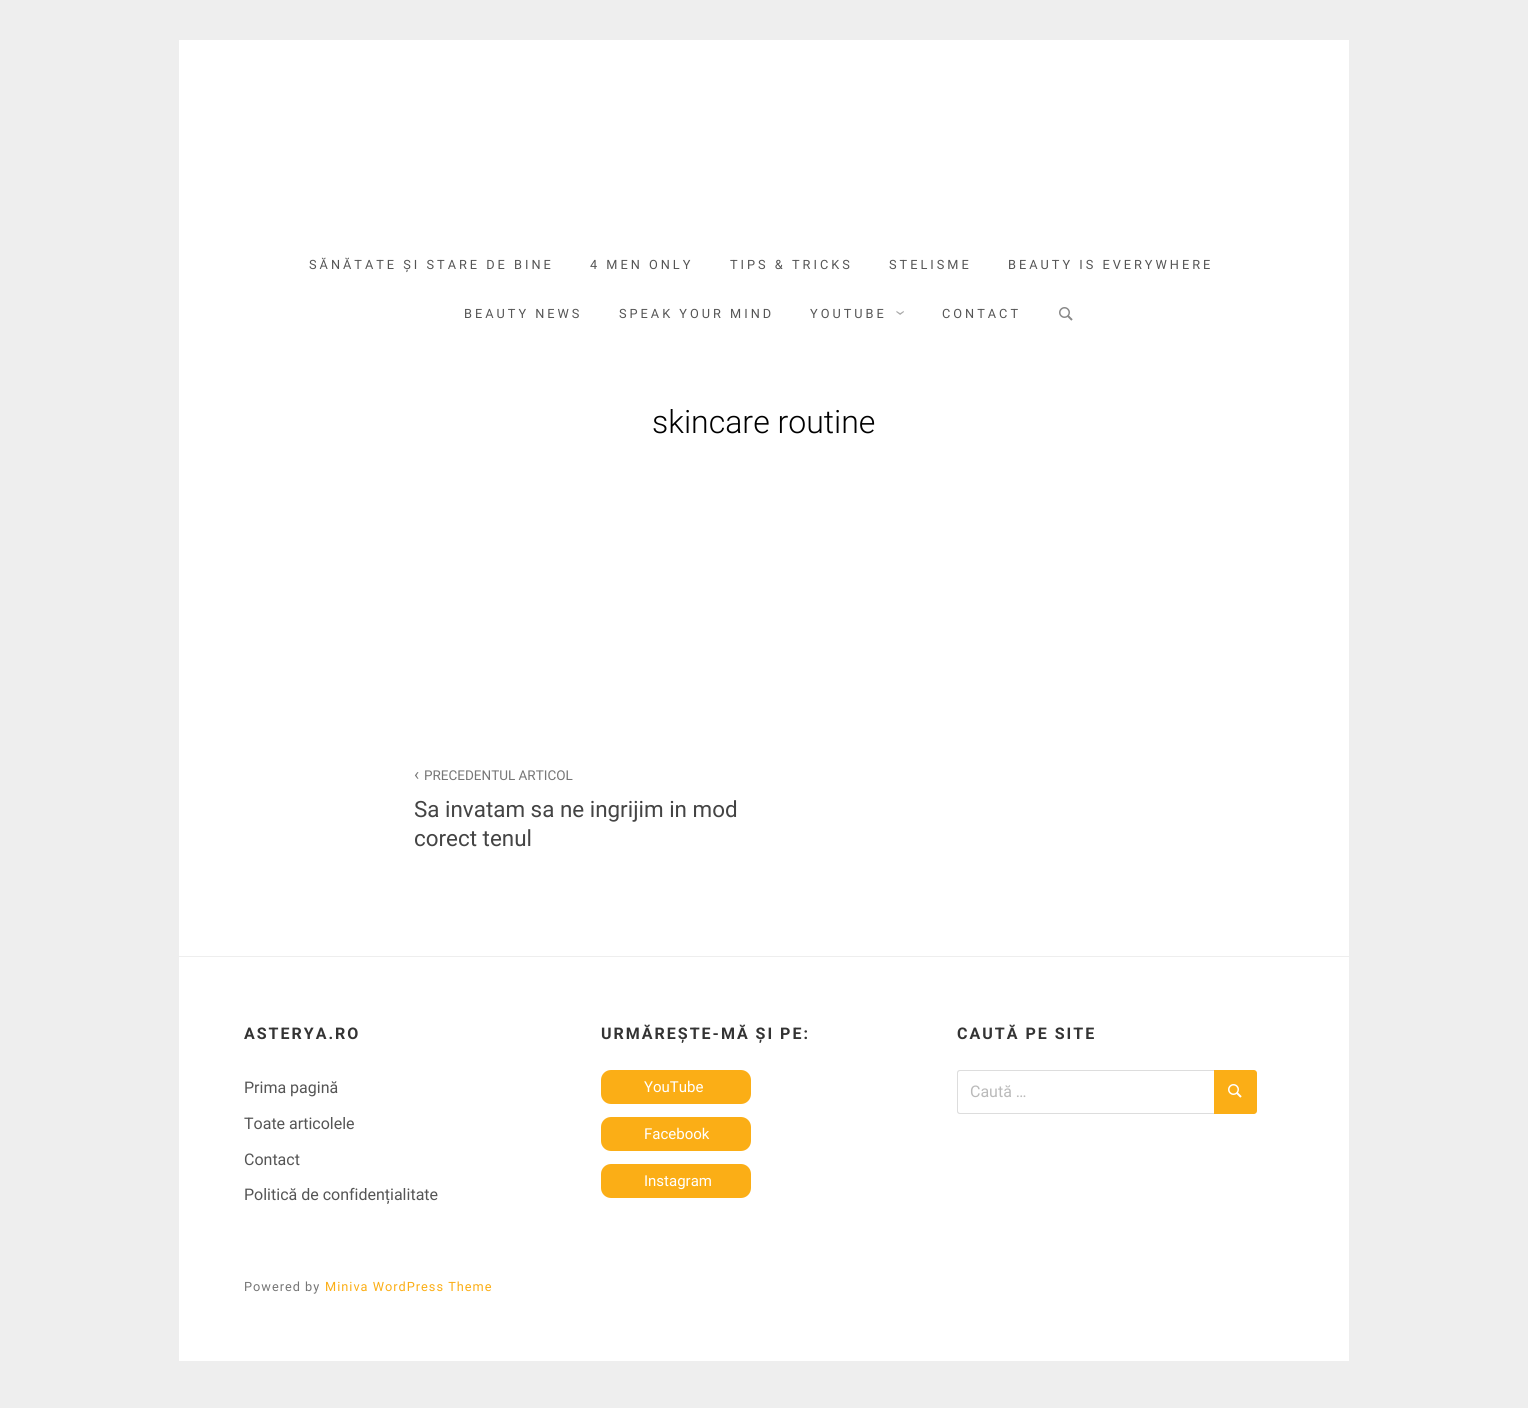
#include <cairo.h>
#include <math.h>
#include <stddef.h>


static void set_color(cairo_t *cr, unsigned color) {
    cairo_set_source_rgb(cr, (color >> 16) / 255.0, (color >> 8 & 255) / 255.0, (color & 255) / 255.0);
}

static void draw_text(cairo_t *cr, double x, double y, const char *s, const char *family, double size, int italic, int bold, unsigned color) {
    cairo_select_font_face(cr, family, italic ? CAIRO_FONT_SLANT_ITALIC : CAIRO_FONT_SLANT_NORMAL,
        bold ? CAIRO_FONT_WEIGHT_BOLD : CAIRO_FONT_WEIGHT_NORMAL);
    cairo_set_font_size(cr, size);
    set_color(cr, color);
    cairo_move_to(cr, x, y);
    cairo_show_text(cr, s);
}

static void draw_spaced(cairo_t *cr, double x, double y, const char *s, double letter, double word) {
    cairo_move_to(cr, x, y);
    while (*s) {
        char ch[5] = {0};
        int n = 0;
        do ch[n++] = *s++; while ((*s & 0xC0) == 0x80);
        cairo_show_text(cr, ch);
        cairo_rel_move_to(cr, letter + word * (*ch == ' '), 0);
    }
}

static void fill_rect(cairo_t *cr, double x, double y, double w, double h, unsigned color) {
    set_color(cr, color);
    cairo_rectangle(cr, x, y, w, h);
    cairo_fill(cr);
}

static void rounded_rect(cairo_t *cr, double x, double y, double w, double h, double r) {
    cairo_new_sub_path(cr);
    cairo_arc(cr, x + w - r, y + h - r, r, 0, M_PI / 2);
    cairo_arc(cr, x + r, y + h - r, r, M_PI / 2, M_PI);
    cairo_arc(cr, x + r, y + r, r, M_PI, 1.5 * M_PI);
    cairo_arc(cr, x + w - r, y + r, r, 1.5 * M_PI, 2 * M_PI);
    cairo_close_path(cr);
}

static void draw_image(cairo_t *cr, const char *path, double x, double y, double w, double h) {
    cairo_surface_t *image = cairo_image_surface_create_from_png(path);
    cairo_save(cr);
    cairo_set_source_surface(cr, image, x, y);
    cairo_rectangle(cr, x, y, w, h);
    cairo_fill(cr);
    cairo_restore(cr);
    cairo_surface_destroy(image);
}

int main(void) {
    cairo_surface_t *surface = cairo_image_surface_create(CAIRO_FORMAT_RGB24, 1528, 1408);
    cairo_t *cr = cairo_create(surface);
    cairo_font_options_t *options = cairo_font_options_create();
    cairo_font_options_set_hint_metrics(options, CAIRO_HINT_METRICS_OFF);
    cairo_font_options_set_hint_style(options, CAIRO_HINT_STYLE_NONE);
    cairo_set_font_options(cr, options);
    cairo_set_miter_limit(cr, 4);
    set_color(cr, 0xEEEEEE);
    cairo_paint(cr);
    fill_rect(cr, 179, 40, 1170, 1321, 0xFFFFFF);
    cairo_select_font_face(cr, "Roboto", CAIRO_FONT_SLANT_NORMAL, CAIRO_FONT_WEIGHT_NORMAL);
    cairo_set_font_size(cr, 12.75);
    set_color(cr, 0x555555);
    draw_spaced(cr, 309, 269, "SĂNĂTATE ȘI STARE DE BINE", 3, 0);
    draw_spaced(cr, 590, 269, "4 MEN ONLY", 3, 0);
    draw_spaced(cr, 730, 269, "TIPS & TRICKS", 3, 0);
    draw_spaced(cr, 889, 269, "STELISME", 3, 0);
    draw_spaced(cr, 1008, 269, "BEAUTY IS EVERYWHERE", 3, 0);
    draw_spaced(cr, 464, 318, "BEAUTY NEWS", 3, 0);
    draw_spaced(cr, 619, 318, "SPEAK YOUR MIND", 3, 0);
    draw_spaced(cr, 810, 318, "YOUTUBE", 3, 0);
    cairo_set_font_size(cr, 19);
    set_color(cr, 0xAAAAAA);
    cairo_save(cr);
    cairo_translate(cr, 895, 310);
    cairo_rotate(cr, 90 * M_PI / 180);
    draw_spaced(cr, 0, 0, "›", 3, 0);
    cairo_restore(cr);
    cairo_set_font_size(cr, 12.75);
    set_color(cr, 0x555555);
    draw_spaced(cr, 942, 318, "CONTACT", 3, 0);
    draw_image(cr, "assets/img1.png", 1059, 307, 14, 14);
    draw_text(cr, 652, 433, "skincare routine", "Roboto Light", 32, 0, 0, 0x000000);
    draw_text(cr, 414, 780, "‹", "Roboto", 17, 0, 0, 0x767676);
    draw_text(cr, 424, 780, "PRECEDENTUL ARTICOL", "Roboto", 13.5, 0, 0, 0x767676);
    draw_text(cr, 414, 817, "Sa invatam sa ne ingrijim in mod", "Roboto", 22.4, 0, 0, 0x444444);
    draw_text(cr, 414, 846, "corect tenul", "Roboto", 22.4, 0, 0, 0x444444);
    fill_rect(cr, 179, 956, 1170, 1, 0xEEEEEE);
    cairo_select_font_face(cr, "Roboto", CAIRO_FONT_SLANT_NORMAL, CAIRO_FONT_WEIGHT_BOLD);
    cairo_set_font_size(cr, 16);
    set_color(cr, 0x333333);
    draw_spaced(cr, 244, 1039, "ASTERYA.RO", 2, 0);
    draw_text(cr, 244, 1093, "Prima pagină", "Roboto", 16, 0, 0, 0x555555);
    draw_text(cr, 244, 1129, "Toate articolele", "Roboto", 16, 0, 0, 0x555555);
    draw_text(cr, 244, 1165, "Contact", "Roboto", 16, 0, 0, 0x555555);
    draw_text(cr, 244, 1200, "Politică de confidențialitate", "Roboto", 16, 0, 0, 0x555555);
    cairo_select_font_face(cr, "Roboto", CAIRO_FONT_SLANT_NORMAL, CAIRO_FONT_WEIGHT_BOLD);
    set_color(cr, 0x333333);
    draw_spaced(cr, 601, 1039, "URMĂREȘTE-MĂ ȘI PE:", 2, 0);
    set_color(cr, 0xFBAE16);
    rounded_rect(cr, 601, 1070, 150, 34, 10);
    cairo_fill(cr);
    draw_text(cr, 644, 1092, "YouTube", "Roboto", 15, 0, 0, 0xFFFFFF);
    set_color(cr, 0xFBAE16);
    rounded_rect(cr, 601, 1117, 150, 34, 10);
    cairo_fill(cr);
    draw_text(cr, 644, 1139, "Facebook", "Roboto", 15, 0, 0, 0xFFFFFF);
    set_color(cr, 0xFBAE16);
    rounded_rect(cr, 601, 1164, 150, 34, 10);
    cairo_fill(cr);
    draw_text(cr, 644, 1186, "Instagram", "Roboto", 15, 0, 0, 0xFFFFFF);
    cairo_select_font_face(cr, "Roboto", CAIRO_FONT_SLANT_NORMAL, CAIRO_FONT_WEIGHT_BOLD);
    cairo_set_font_size(cr, 16);
    set_color(cr, 0x333333);
    draw_spaced(cr, 957, 1039, "CAUTĂ PE SITE", 2, 0);
    set_color(cr, 0xDDDDDD);
    cairo_set_fill_rule(cr, CAIRO_FILL_RULE_EVEN_ODD);
    cairo_new_path(cr);
    cairo_move_to(cr, 960, 1070);
    cairo_line_to(cr, 1214, 1070);
    cairo_line_to(cr, 1214, 1114);
    cairo_line_to(cr, 960, 1114);
    cairo_curve_to(cr, 958, 1114, 957, 1113, 957, 1111);
    cairo_line_to(cr, 957, 1073);
    cairo_curve_to(cr, 957, 1071, 958, 1070, 960, 1070);
    cairo_close_path(cr);
    cairo_move_to(cr, 960, 1071);
    cairo_line_to(cr, 1214, 1071);
    cairo_line_to(cr, 1214, 1113);
    cairo_line_to(cr, 960, 1113);
    cairo_curve_to(cr, 959, 1113, 958, 1112, 958, 1111);
    cairo_line_to(cr, 958, 1073);
    cairo_curve_to(cr, 958, 1072, 959, 1071, 960, 1071);
    cairo_close_path(cr);
    cairo_fill(cr);
    draw_text(cr, 970, 1097, "Caută …", "Roboto", 16, 0, 0, 0xBABABA);
    set_color(cr, 0xFBAE16);
    cairo_new_path(cr);
    cairo_move_to(cr, 1214, 1070);
    cairo_line_to(cr, 1254, 1070);
    cairo_curve_to(cr, 1255.5, 1070, 1257, 1071.5, 1257, 1073);
    cairo_line_to(cr, 1257, 1111);
    cairo_curve_to(cr, 1257, 1112.5, 1255.5, 1114, 1254, 1114);
    cairo_line_to(cr, 1214, 1114);
    cairo_close_path(cr);
    cairo_fill(cr);
    draw_image(cr, "assets/img2.png", 1228, 1084, 14, 14);
    cairo_set_font_size(cr, 12.75);
    set_color(cr, 0x767676);
    draw_spaced(cr, 244, 1291, "Powered by", 1, 0);
    set_color(cr, 0xFBAE16);
    draw_spaced(cr, 325, 1291, "Miniva WordPress Theme", 1, 0);
    cairo_surface_write_to_png(surface, "output.png");
    cairo_font_options_destroy(options);
    cairo_destroy(cr);
    cairo_surface_destroy(surface);
    return 0;
}
